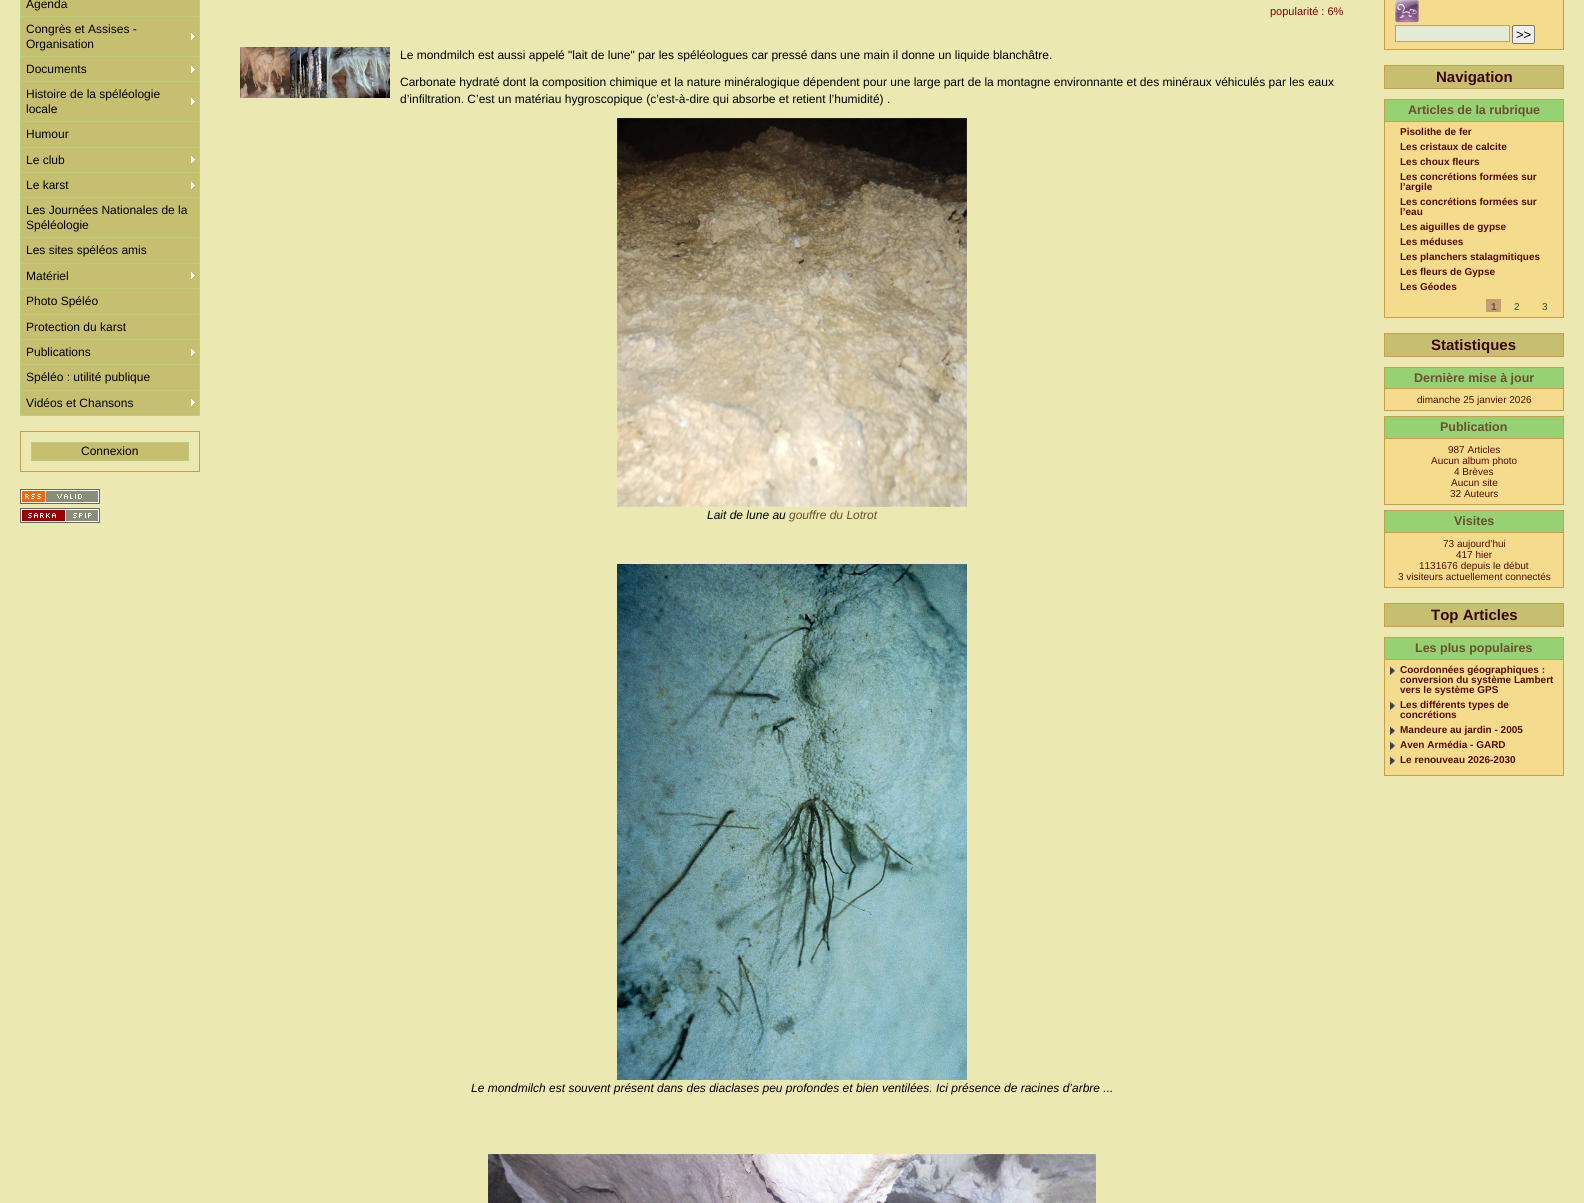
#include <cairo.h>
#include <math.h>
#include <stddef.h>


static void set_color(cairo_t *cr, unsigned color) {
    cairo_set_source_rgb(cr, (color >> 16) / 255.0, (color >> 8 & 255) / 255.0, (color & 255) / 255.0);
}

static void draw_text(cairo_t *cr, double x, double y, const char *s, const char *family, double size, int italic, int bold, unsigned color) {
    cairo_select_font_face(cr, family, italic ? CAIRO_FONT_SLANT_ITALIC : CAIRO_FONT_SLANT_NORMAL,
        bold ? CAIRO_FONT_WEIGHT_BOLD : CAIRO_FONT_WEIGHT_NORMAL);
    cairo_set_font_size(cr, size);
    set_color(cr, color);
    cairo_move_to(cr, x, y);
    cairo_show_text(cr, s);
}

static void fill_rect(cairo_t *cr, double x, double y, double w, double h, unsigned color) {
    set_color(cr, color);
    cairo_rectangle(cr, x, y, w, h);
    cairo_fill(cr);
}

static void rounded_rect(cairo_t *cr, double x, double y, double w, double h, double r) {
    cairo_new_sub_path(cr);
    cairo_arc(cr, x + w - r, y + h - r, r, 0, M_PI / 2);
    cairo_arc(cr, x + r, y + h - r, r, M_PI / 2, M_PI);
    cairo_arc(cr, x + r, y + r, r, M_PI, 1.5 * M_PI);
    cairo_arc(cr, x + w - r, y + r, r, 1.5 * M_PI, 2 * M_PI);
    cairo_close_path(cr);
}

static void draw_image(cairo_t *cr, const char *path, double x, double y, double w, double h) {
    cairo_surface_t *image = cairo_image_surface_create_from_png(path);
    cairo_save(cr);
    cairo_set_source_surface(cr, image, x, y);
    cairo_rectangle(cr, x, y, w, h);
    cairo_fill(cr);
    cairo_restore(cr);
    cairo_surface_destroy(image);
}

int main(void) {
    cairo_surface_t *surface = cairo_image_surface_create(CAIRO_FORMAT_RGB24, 1584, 1203);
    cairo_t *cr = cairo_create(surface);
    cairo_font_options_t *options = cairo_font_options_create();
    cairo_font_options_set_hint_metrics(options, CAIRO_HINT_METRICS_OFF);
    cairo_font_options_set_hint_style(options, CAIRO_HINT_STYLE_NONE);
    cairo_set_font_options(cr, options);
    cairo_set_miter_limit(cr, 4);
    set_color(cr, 0xEBE8B1);
    cairo_paint(cr);
    fill_rect(cr, 21, 0, 178, 390, 0xC6BF70);
    fill_rect(cr, 199, 0, 1, 416, 0xB7CF7A);
    fill_rect(cr, 20, 0, 1, 416, 0xB7CF7A);
    fill_rect(cr, 21, 16, 178, 1, 0xB7CF7A);
    draw_text(cr, 26, 8, "Agenda", "Liberation Sans", 12, 0, 0, 0x000000);
    fill_rect(cr, 21, 56, 178, 1, 0xB7CF7A);
    draw_image(cr, "assets/img1.png", 191, 33, 4, 7);
    draw_text(cr, 26, 33, "Congrès et Assises -", "Liberation Sans", 12, 0, 0, 0x000000);
    draw_text(cr, 26, 48, "Organisation", "Liberation Sans", 12, 0, 0, 0x000000);
    fill_rect(cr, 21, 81, 178, 1, 0xB7CF7A);
    draw_image(cr, "assets/img1.png", 191, 66, 4, 7);
    draw_text(cr, 26, 73, "Documents", "Liberation Sans", 12, 0, 0, 0x000000);
    fill_rect(cr, 21, 121, 178, 1, 0xB7CF7A);
    draw_image(cr, "assets/img1.png", 191, 98, 4, 7);
    draw_text(cr, 26, 98, "Histoire de la spéléologie", "Liberation Sans", 12, 0, 0, 0x000000);
    draw_text(cr, 26, 113, "locale", "Liberation Sans", 12, 0, 0, 0x000000);
    fill_rect(cr, 21, 147, 178, 1, 0xB7CF7A);
    draw_text(cr, 26, 138, "Humour", "Liberation Sans", 12, 0, 0, 0x000000);
    fill_rect(cr, 21, 172, 178, 1, 0xB7CF7A);
    draw_image(cr, "assets/img1.png", 191, 156, 4, 7);
    draw_text(cr, 26, 164, "Le club", "Liberation Sans", 12, 0, 0, 0x000000);
    fill_rect(cr, 21, 197, 178, 1, 0xB7CF7A);
    draw_image(cr, "assets/img1.png", 191, 182, 4, 7);
    draw_text(cr, 26, 189, "Le karst", "Liberation Sans", 12, 0, 0, 0x000000);
    fill_rect(cr, 21, 237, 178, 1, 0xB7CF7A);
    draw_text(cr, 26, 214, "Les Journées Nationales de la", "Liberation Sans", 12, 0, 0, 0x000000);
    draw_text(cr, 26, 229, "Spéléologie", "Liberation Sans", 12, 0, 0, 0x000000);
    fill_rect(cr, 21, 263, 178, 1, 0xB7CF7A);
    draw_text(cr, 26, 254, "Les sites spéléos amis", "Liberation Sans", 12, 0, 0, 0x000000);
    fill_rect(cr, 21, 288, 178, 1, 0xB7CF7A);
    draw_image(cr, "assets/img1.png", 191, 272, 4, 7);
    draw_text(cr, 26, 280, "Matériel", "Liberation Sans", 12, 0, 0, 0x000000);
    fill_rect(cr, 21, 314, 178, 1, 0xB7CF7A);
    draw_text(cr, 26, 305, "Photo Spéléo", "Liberation Sans", 12, 0, 0, 0x000000);
    fill_rect(cr, 21, 339, 178, 1, 0xB7CF7A);
    draw_text(cr, 26, 331, "Protection du karst", "Liberation Sans", 12, 0, 0, 0x000000);
    fill_rect(cr, 21, 364, 178, 1, 0xB7CF7A);
    draw_image(cr, "assets/img1.png", 191, 349, 4, 7);
    draw_text(cr, 26, 356, "Publications", "Liberation Sans", 12, 0, 0, 0x000000);
    fill_rect(cr, 21, 390, 178, 1, 0xB7CF7A);
    draw_text(cr, 26, 381, "Spéléo : utilité publique", "Liberation Sans", 12, 0, 0, 0x000000);
    fill_rect(cr, 21, 415, 178, 1, 0xB7CF7A);
    fill_rect(cr, 21, 391, 178, 24, 0xC6BF70);
    draw_image(cr, "assets/img1.png", 191, 399, 4, 7);
    draw_text(cr, 26, 407, "Vidéos et Chansons", "Liberation Sans", 12, 0, 0, 0x000000);
    cairo_rectangle(cr, 20.5, 431.5, 179, 40);
    set_color(cr, 0xC79F4B);
    cairo_set_line_width(cr, 1);
    cairo_stroke(cr);
    set_color(cr, 0xC6BF70);
    cairo_rectangle(cr, 31.5, 442.5, 157, 18);
    cairo_fill_preserve(cr);
    set_color(cr, 0xB7CF7A);
    cairo_stroke(cr);
    draw_text(cr, 81, 455, "Connexion", "Liberation Sans", 12, 0, 0, 0x000000);
    draw_image(cr, "assets/img2.png", 20, 489, 80, 15);
    draw_image(cr, "assets/img3.png", 20, 508, 80, 15);
    draw_text(cr, 1270, 15, "popularité : 6%", "Liberation Sans", 11, 0, 0, 0x7D0000);
    draw_image(cr, "assets/img4.png", 240, 47, 150, 51);
    draw_text(cr, 400, 59, "Le mondmilch est aussi appelé \"lait de lune\" par les spéléologues car pressé dans une main il donne un liquide blanchâtre.", "Liberation Sans", 12, 0, 0, 0x000000);
    draw_text(cr, 400, 86, "Carbonate hydraté dont la composition chimique et la nature minéralogique dépendent pour une large part de la montagne environnante et des minéraux véhiculés par les eaux", "Liberation Sans", 12, 0, 0, 0x000000);
    draw_text(cr, 400, 103, "d’infiltration. C’est un matériau hygroscopique (c’est-à-dire qui absorbe et retient l’humidité) .", "Liberation Sans", 12, 0, 0, 0x000000);
    draw_image(cr, "assets/img5.png", 617, 118, 350, 389);
    draw_text(cr, 707, 519, "Lait de lune au", "Liberation Sans", 12, 1, 0, 0x000000);
    draw_text(cr, 789, 519, "gouffre du Lotrot", "Liberation Sans", 12, 1, 0, 0x6B4F2E);
    draw_image(cr, "assets/img6.png", 617, 564, 350, 516);
    draw_text(cr, 471, 1092, "Le mondmilch est souvent présent dans des diaclases peu profondes et bien ventilées. Ici présence de racines d’arbre ...", "Liberation Sans", 12, 1, 0, 0x000000);
    draw_image(cr, "assets/img7.png", 488, 1154, 608, 49);
    set_color(cr, 0xF4DC8C);
    cairo_rectangle(cr, 1384.5, -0.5, 179, 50);
    cairo_fill_preserve(cr);
    set_color(cr, 0xC79F4B);
    cairo_stroke(cr);
    draw_image(cr, "assets/img8.png", 1395, 0, 24, 23);
    set_color(cr, 0xE2EBD6);
    cairo_rectangle(cr, 1395.5, 25.5, 114, 16);
    cairo_fill_preserve(cr);
    set_color(cr, 0xC39F73);
    cairo_stroke(cr);
    set_color(cr, 0xEFEFEF);
    rounded_rect(cr, 1512.5, 25.5, 22, 18, 1.5);
    cairo_fill_preserve(cr);
    set_color(cr, 0x767676);
    cairo_stroke(cr);
    draw_text(cr, 1516, 39, ">>", "Liberation Sans", 13, 0, 0, 0x000000);
    set_color(cr, 0xC6BF70);
    cairo_rectangle(cr, 1384.5, 65.5, 179, 23);
    cairo_fill_preserve(cr);
    set_color(cr, 0xC79F4B);
    cairo_stroke(cr);
    draw_text(cr, 1436, 82, "Navigation", "Liberation Sans", 15, 0, 1, 0x3B0405);
    fill_rect(cr, 1385, 122, 178, 195, 0xF4DC8C);
    cairo_rectangle(cr, 1384.5, 99.5, 179, 218);
    set_color(cr, 0xC79F4B);
    cairo_stroke(cr);
    fill_rect(cr, 1385, 100, 178, 21, 0x96D173);
    fill_rect(cr, 1385, 121, 178, 1, 0xC79F4B);
    draw_text(cr, 1408, 114, "Articles de la rubrique", "Liberation Sans", 12.5, 0, 1, 0x6B4F2E);
    draw_text(cr, 1400, 135, "Pisolithe de fer", "Liberation Sans", 10, 0, 1, 0x570906);
    draw_text(cr, 1400, 150, "Les cristaux de calcite", "Liberation Sans", 10, 0, 1, 0x570906);
    draw_text(cr, 1400, 165, "Les choux fleurs", "Liberation Sans", 10, 0, 1, 0x570906);
    draw_text(cr, 1400, 180, "Les concrétions formées sur", "Liberation Sans", 10, 0, 1, 0x570906);
    draw_text(cr, 1400, 190, "l’argile", "Liberation Sans", 10, 0, 1, 0x570906);
    draw_text(cr, 1400, 205, "Les concrétions formées sur", "Liberation Sans", 10, 0, 1, 0x570906);
    draw_text(cr, 1400, 215, "l’eau", "Liberation Sans", 10, 0, 1, 0x570906);
    draw_text(cr, 1400, 230, "Les aiguilles de gypse", "Liberation Sans", 10, 0, 1, 0x570906);
    draw_text(cr, 1400, 245, "Les méduses", "Liberation Sans", 10, 0, 1, 0x570906);
    draw_text(cr, 1400, 260, "Les planchers stalagmitiques", "Liberation Sans", 10, 0, 1, 0x570906);
    draw_text(cr, 1400, 275, "Les fleurs de Gypse", "Liberation Sans", 10, 0, 1, 0x570906);
    draw_text(cr, 1400, 290, "Les Géodes", "Liberation Sans", 10, 0, 1, 0x570906);
    fill_rect(cr, 1486, 299, 15, 13, 0xC39F73);
    draw_text(cr, 1491, 310, "1", "Liberation Sans", 10, 0, 1, 0x6B4F2E);
    draw_text(cr, 1514, 310, "2", "Liberation Sans", 10, 0, 0, 0x2E4D28);
    draw_text(cr, 1542, 310, "3", "Liberation Sans", 10, 0, 0, 0x2E4D28);
    set_color(cr, 0xC6BF70);
    cairo_rectangle(cr, 1384.5, 333.5, 179, 23);
    cairo_fill_preserve(cr);
    set_color(cr, 0xC79F4B);
    cairo_stroke(cr);
    draw_text(cr, 1431, 350, "Statistiques", "Liberation Sans", 15, 0, 1, 0x3B0405);
    fill_rect(cr, 1385, 389, 178, 21, 0xF4DC8C);
    cairo_rectangle(cr, 1384.5, 367.5, 179, 43);
    set_color(cr, 0xC79F4B);
    cairo_stroke(cr);
    fill_rect(cr, 1385, 368, 178, 20, 0x96D173);
    fill_rect(cr, 1385, 388, 178, 1, 0xC79F4B);
    draw_text(cr, 1414, 382, "Dernière mise à jour", "Liberation Sans", 12.5, 0, 1, 0x6B4F2E);
    draw_text(cr, 1417, 403, "dimanche 25 janvier 2026", "Liberation Sans", 10, 0, 0, 0x570906);
    fill_rect(cr, 1385, 439, 178, 65, 0xF4DC8C);
    cairo_rectangle(cr, 1384.5, 416.5, 179, 88);
    set_color(cr, 0xC79F4B);
    cairo_stroke(cr);
    fill_rect(cr, 1385, 417, 178, 21, 0x96D173);
    fill_rect(cr, 1385, 438, 178, 1, 0xC79F4B);
    draw_text(cr, 1440, 431, "Publication", "Liberation Sans", 12.5, 0, 1, 0x6B4F2E);
    draw_text(cr, 1448, 453, "987 Articles", "Liberation Sans", 10, 0, 0, 0x570906);
    draw_text(cr, 1431, 464, "Aucun album photo", "Liberation Sans", 10, 0, 0, 0x570906);
    draw_text(cr, 1454, 475, "4 Brèves", "Liberation Sans", 10, 0, 0, 0x570906);
    draw_text(cr, 1451, 486, "Aucun site", "Liberation Sans", 10, 0, 0, 0x570906);
    draw_text(cr, 1450, 497, "32 Auteurs", "Liberation Sans", 10, 0, 0, 0x570906);
    fill_rect(cr, 1385, 533, 178, 54, 0xF4DC8C);
    cairo_rectangle(cr, 1384.5, 510.5, 179, 77);
    set_color(cr, 0xC79F4B);
    cairo_stroke(cr);
    fill_rect(cr, 1385, 511, 178, 21, 0x96D173);
    fill_rect(cr, 1385, 532, 178, 1, 0xC79F4B);
    draw_text(cr, 1454, 525, "Visites", "Liberation Sans", 12.5, 0, 1, 0x6B4F2E);
    draw_text(cr, 1443, 547, "73 aujourd’hui", "Liberation Sans", 10, 0, 0, 0x570906);
    draw_text(cr, 1456, 558, "417 hier", "Liberation Sans", 10, 0, 0, 0x570906);
    draw_text(cr, 1419, 569, "1131676 depuis le début", "Liberation Sans", 10, 0, 0, 0x570906);
    draw_text(cr, 1398, 580, "3 visiteurs actuellement connectés", "Liberation Sans", 10, 0, 0, 0x570906);
    set_color(cr, 0xC6BF70);
    cairo_rectangle(cr, 1384.5, 603.5, 179, 23);
    cairo_fill_preserve(cr);
    set_color(cr, 0xC79F4B);
    cairo_stroke(cr);
    draw_text(cr, 1431, 620, "Top Articles", "Liberation Sans", 15, 0, 1, 0x3B0405);
    fill_rect(cr, 1385, 660, 178, 115, 0xF4DC8C);
    cairo_rectangle(cr, 1384.5, 637.5, 179, 138);
    set_color(cr, 0xC79F4B);
    cairo_stroke(cr);
    fill_rect(cr, 1385, 638, 178, 21, 0x96D173);
    fill_rect(cr, 1385, 659, 178, 1, 0xC79F4B);
    draw_text(cr, 1415, 652, "Les plus populaires", "Liberation Sans", 12.5, 0, 1, 0x6B4F2E);
    draw_image(cr, "assets/img9.png", 1390, 666, 5, 9);
    draw_text(cr, 1400, 673, "Coordonnées géographiques :", "Liberation Sans", 10, 0, 1, 0x570906);
    draw_text(cr, 1400, 683, "conversion du système Lambert", "Liberation Sans", 10, 0, 1, 0x570906);
    draw_text(cr, 1400, 693, "vers le système GPS", "Liberation Sans", 10, 0, 1, 0x570906);
    draw_image(cr, "assets/img9.png", 1390, 701, 5, 9);
    draw_text(cr, 1400, 708, "Les différents types de", "Liberation Sans", 10, 0, 1, 0x570906);
    draw_text(cr, 1400, 718, "concrétions", "Liberation Sans", 10, 0, 1, 0x570906);
    draw_image(cr, "assets/img9.png", 1390, 726, 5, 9);
    draw_text(cr, 1400, 733, "Mandeure au jardin - 2005", "Liberation Sans", 10, 0, 1, 0x570906);
    draw_image(cr, "assets/img9.png", 1390, 741, 5, 9);
    draw_text(cr, 1400, 748, "Aven Armédia - GARD", "Liberation Sans", 10, 0, 1, 0x570906);
    draw_image(cr, "assets/img9.png", 1390, 756, 5, 9);
    draw_text(cr, 1400, 763, "Le renouveau 2026-2030", "Liberation Sans", 10, 0, 1, 0x570906);
    cairo_surface_write_to_png(surface, "output.png");
    cairo_font_options_destroy(options);
    cairo_destroy(cr);
    cairo_surface_destroy(surface);
    return 0;
}
